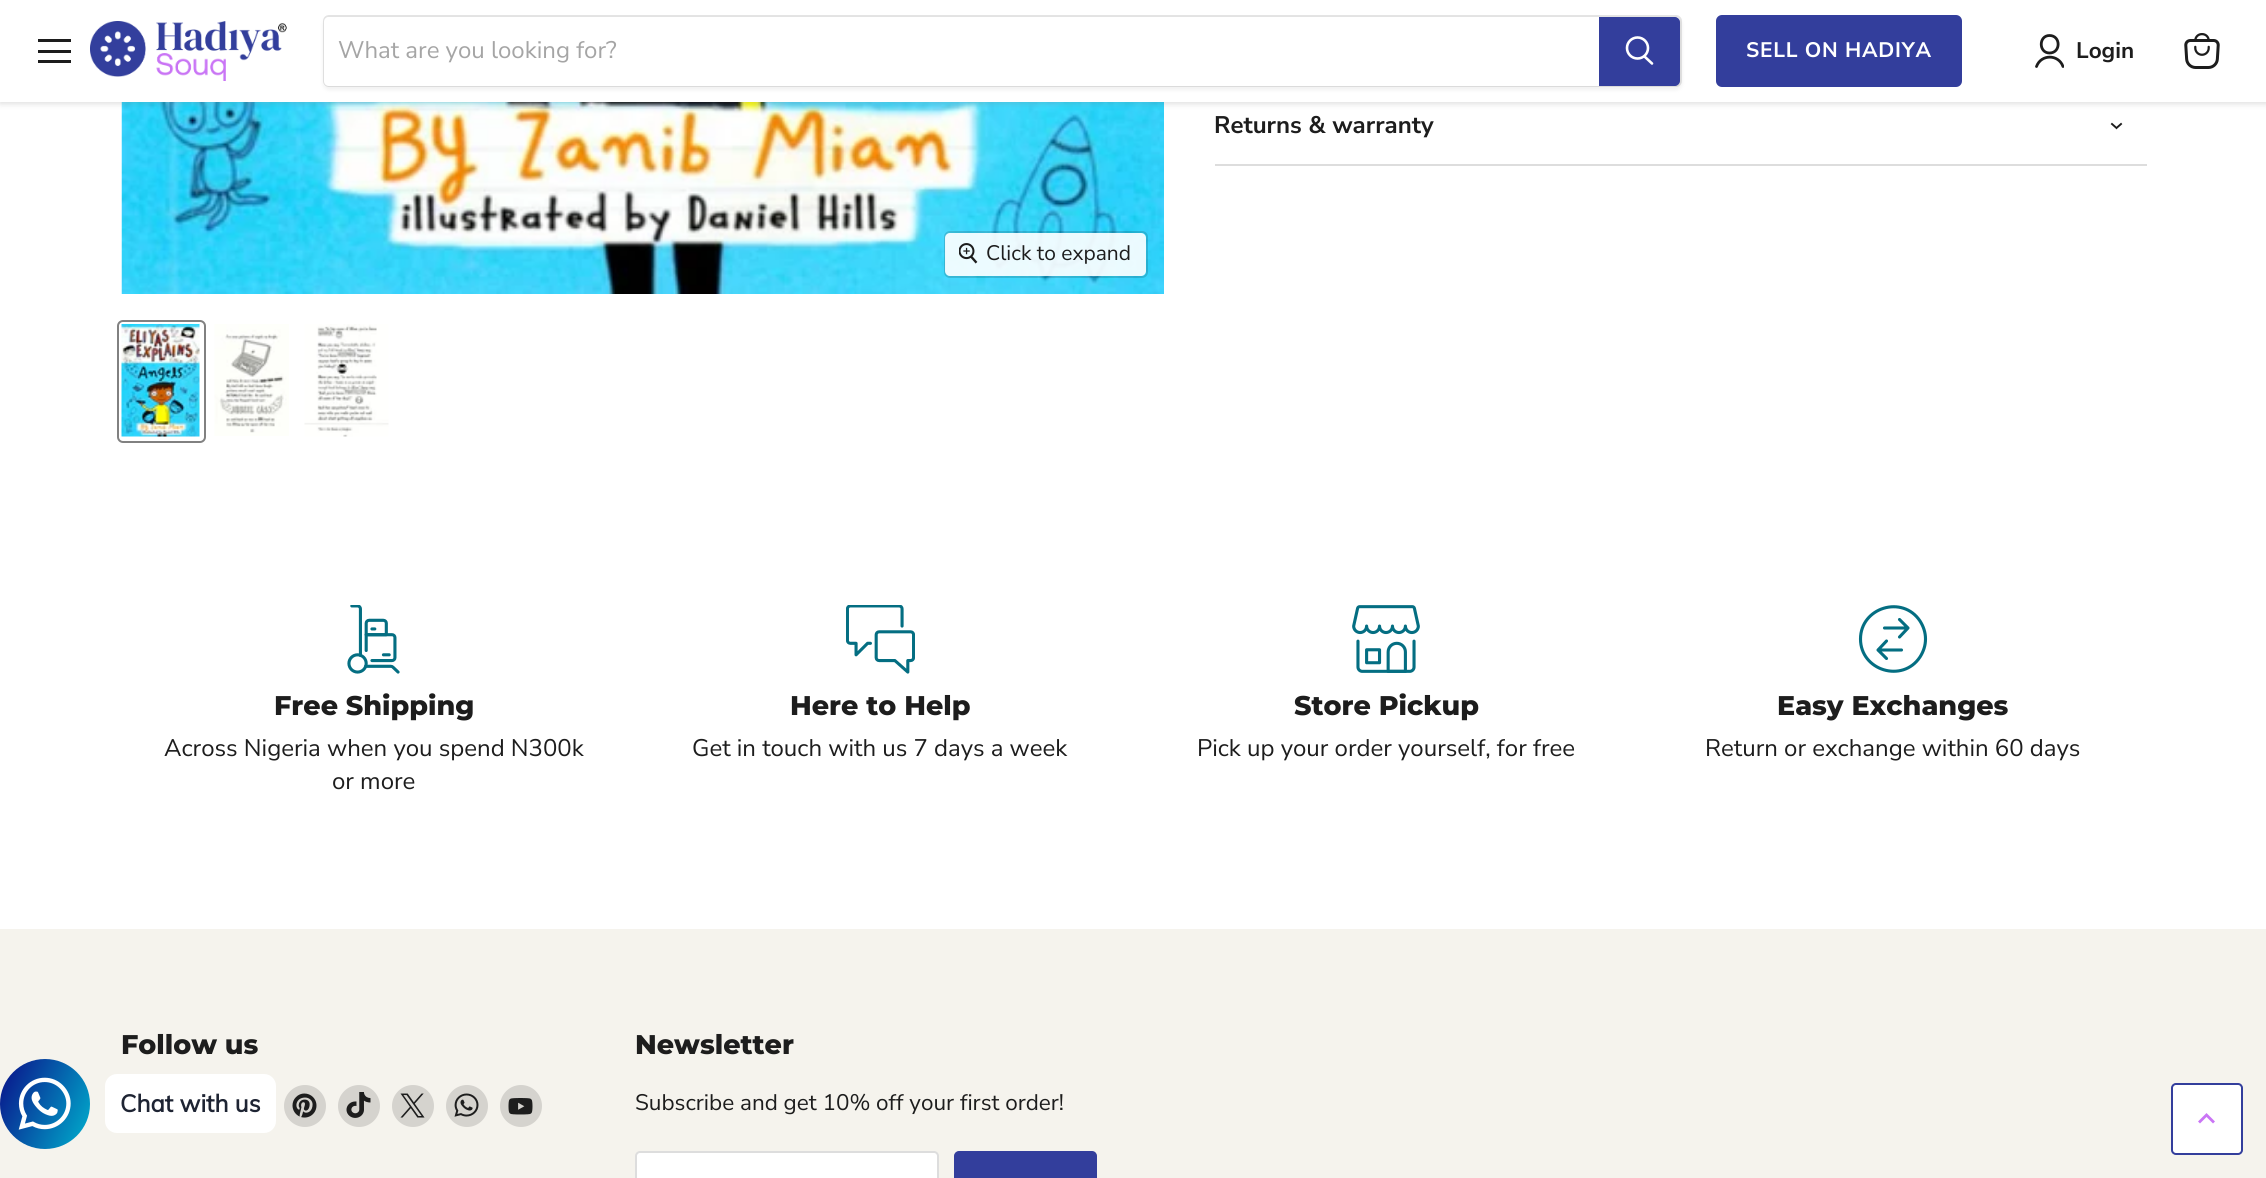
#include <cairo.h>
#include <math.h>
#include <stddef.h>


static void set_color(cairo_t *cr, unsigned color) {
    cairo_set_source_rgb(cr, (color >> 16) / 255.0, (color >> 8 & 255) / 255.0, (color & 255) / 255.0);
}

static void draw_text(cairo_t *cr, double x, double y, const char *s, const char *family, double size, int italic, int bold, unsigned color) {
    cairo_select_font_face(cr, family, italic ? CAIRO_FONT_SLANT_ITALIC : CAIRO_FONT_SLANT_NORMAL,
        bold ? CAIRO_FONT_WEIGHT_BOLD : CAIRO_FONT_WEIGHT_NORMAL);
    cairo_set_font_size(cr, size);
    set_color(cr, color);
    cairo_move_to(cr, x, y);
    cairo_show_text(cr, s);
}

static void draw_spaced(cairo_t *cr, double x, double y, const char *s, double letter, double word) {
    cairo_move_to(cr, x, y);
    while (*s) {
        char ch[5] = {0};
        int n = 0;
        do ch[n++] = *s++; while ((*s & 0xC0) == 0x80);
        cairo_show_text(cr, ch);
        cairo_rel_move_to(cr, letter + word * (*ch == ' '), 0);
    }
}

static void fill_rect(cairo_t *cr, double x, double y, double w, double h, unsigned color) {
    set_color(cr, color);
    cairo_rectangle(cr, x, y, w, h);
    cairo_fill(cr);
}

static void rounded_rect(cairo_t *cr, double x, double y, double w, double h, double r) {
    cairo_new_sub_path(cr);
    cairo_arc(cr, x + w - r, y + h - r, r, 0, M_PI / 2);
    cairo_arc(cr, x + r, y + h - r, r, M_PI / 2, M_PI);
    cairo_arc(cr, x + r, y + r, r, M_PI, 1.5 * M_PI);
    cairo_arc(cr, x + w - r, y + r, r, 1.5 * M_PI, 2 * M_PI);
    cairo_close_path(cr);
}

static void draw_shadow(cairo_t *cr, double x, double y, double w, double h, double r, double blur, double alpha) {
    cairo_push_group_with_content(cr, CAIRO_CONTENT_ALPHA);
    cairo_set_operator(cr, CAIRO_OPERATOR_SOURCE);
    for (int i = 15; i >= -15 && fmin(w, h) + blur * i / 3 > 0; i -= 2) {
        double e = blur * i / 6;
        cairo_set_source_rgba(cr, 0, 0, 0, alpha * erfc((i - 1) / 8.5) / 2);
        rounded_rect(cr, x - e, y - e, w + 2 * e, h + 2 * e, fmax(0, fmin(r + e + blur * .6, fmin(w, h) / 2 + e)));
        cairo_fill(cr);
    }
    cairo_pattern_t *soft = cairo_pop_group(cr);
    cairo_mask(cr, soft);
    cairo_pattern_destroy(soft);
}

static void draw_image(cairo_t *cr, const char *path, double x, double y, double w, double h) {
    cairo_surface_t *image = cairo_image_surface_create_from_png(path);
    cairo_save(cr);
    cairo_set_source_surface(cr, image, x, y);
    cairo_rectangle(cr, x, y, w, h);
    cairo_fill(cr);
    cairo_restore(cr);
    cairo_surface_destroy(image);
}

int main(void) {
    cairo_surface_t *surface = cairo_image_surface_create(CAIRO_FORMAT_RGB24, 2266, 1178);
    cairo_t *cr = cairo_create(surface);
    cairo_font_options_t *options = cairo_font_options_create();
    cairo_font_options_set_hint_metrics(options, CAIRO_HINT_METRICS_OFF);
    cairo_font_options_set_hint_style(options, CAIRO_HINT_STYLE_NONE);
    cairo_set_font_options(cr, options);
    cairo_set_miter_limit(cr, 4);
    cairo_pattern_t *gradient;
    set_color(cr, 0xFFFFFF);
    cairo_paint(cr);
    draw_image(cr, "assets/img3.png", 121, 102, 1043, 192);
    set_color(cr, 0x808080);
    draw_shadow(cr, 0, 2, 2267, 102, 0, 3, 0.25);
    fill_rect(cr, 0, 0, 2266, 102, 0xFFFFFF);
    fill_rect(cr, 38, 39, 33, 3, 0x1D1D1D);
    fill_rect(cr, 38, 50, 33, 3, 0x1D1D1D);
    fill_rect(cr, 38, 60, 33, 3, 0x1D1D1D);
    draw_image(cr, "assets/img1.png", 90, 21, 197, 60);
    set_color(cr, 0x808080);
    draw_shadow(cr, 323, 18, 1359, 72, 6, 2, 0.11);
    rounded_rect(cr, 324, 16, 1357, 70, 5);
    cairo_set_source_rgba(cr, 0.502, 0.502, 0.502, 0.2);
    cairo_stroke(cr);
    set_color(cr, 0xFFFFFF);
    cairo_new_path(cr);
    cairo_move_to(cr, 329, 17);
    cairo_line_to(cr, 1599, 17);
    cairo_line_to(cr, 1599, 86);
    cairo_line_to(cr, 329, 86);
    cairo_curve_to(cr, 326, 86, 324, 84, 324, 81);
    cairo_line_to(cr, 324, 22);
    cairo_curve_to(cr, 324, 19, 326, 17, 329, 17);
    cairo_close_path(cr);
    cairo_fill(cr);
    draw_text(cr, 338, 58, "What are you looking for?", "Nunito Sans", 24, 0, 0, 0xA5A5A5);
    set_color(cr, 0x333E9C);
    cairo_new_path(cr);
    cairo_move_to(cr, 1600, 18);
    cairo_line_to(cr, 1675, 18);
    cairo_curve_to(cr, 1677, 18, 1679, 20, 1679, 22);
    cairo_line_to(cr, 1679, 81);
    cairo_curve_to(cr, 1679, 83, 1677, 85, 1675, 85);
    cairo_line_to(cr, 1600, 85);
    cairo_close_path(cr);
    cairo_fill_preserve(cr);
    cairo_stroke(cr);
    cairo_new_path(cr);
    cairo_move_to(cr, 1652, 63.5);
    cairo_line_to(cr, 1644.5, 56.5);
    set_color(cr, 0xFFFFFF);
    cairo_set_line_width(cr, 2.6);
    cairo_set_line_cap(cr, CAIRO_LINE_CAP_ROUND);
    cairo_stroke(cr);
    cairo_arc(cr, 1637.5, 48, 10.5, 0, 2 * M_PI);
    cairo_set_line_cap(cr, CAIRO_LINE_CAP_BUTT);
    cairo_stroke(cr);
    set_color(cr, 0x333E9C);
    rounded_rect(cr, 1716, 15, 246, 72, 6);
    cairo_fill(cr);
    cairo_select_font_face(cr, "Nunito Sans", CAIRO_FONT_SLANT_NORMAL, CAIRO_FONT_WEIGHT_BOLD);
    cairo_set_font_size(cr, 21);
    set_color(cr, 0xFFFFFF);
    draw_spaced(cr, 1746, 57, "SELL ON HADIYA", 0.75, 0);
    cairo_new_path(cr);
    cairo_move_to(cr, 2049.5, 53);
    cairo_curve_to(cr, 2061, 53, 2061, 35.5, 2049.5, 35.5);
    cairo_curve_to(cr, 2038.5, 35.5, 2038.5, 53, 2049.5, 53);
    cairo_close_path(cr);
    set_color(cr, 0x1D1D1D);
    cairo_set_line_width(cr, 2.8);
    cairo_set_line_cap(cr, CAIRO_LINE_CAP_ROUND);
    cairo_set_line_join(cr, CAIRO_LINE_JOIN_ROUND);
    cairo_stroke(cr);
    cairo_save(cr);
    cairo_rectangle(cr, 2034, 33, 30, 36);
    cairo_clip(cr);
    cairo_new_path(cr);
    cairo_move_to(cr, 2063, 66.5);
    cairo_curve_to(cr, 2058.5, 54, 2041, 54, 2036.5, 66.5);
    cairo_stroke(cr);
    cairo_restore(cr);
    draw_text(cr, 2076, 58, "Login", "Nunito Sans", 22.5, 0, 1, 0x1D1D1D);
    draw_image(cr, "assets/img2.png", 2184, 33, 36, 36);
    fill_rect(cr, 1215, 164, 932, 2, 0xDDDDDD);
    draw_text(cr, 1214, 133, "Returns & warranty", "Nunito Sans", 24, 0, 1, 0x1D1D1D);
    cairo_new_path(cr);
    cairo_move_to(cr, 2116.5, 128);
    cairo_line_to(cr, 2121, 124);
    cairo_move_to(cr, 2116.5, 128);
    cairo_line_to(cr, 2112, 124);
    cairo_set_line_width(cr, 1.9);
    cairo_set_line_cap(cr, CAIRO_LINE_CAP_SQUARE);
    cairo_set_line_join(cr, CAIRO_LINE_JOIN_MITER);
    cairo_stroke(cr);
    rounded_rect(cr, 945, 232, 202, 45, 5);
    cairo_set_source_rgba(cr, 0, 0, 0, 0.15);
    cairo_set_line_width(cr, 2);
    cairo_set_line_cap(cr, CAIRO_LINE_CAP_BUTT);
    cairo_stroke(cr);
    cairo_set_source_rgba(cr, 1, 1, 1, 0.9);
    rounded_rect(cr, 945, 233, 201, 43, 5);
    cairo_fill(cr);
    draw_image(cr, "assets/img4.png", 959, 243, 19, 21);
    draw_text(cr, 986, 260, "Click to expand", "Nunito Sans", 21, 0, 0, 0x1D1D1D);
    rounded_rect(cr, 118, 321, 87, 121, 5);
    set_color(cr, 0x818181);
    cairo_stroke(cr);
    draw_image(cr, "assets/img5.png", 121, 324, 79, 113);
    draw_image(cr, "assets/img6.png", 214, 324, 75, 112);
    draw_image(cr, "assets/img7.png", 304, 324, 85, 113);
    draw_image(cr, "assets/img8.png", 347, 605, 53, 69);
    draw_text(cr, 274, 715, "Free Shipping", "Montserrat ExtraBold", 27, 0, 0, 0x1D1D1D);
    draw_text(cr, 164, 756, "Across Nigeria when you spend N300k", "Nunito Sans", 24, 0, 0, 0x1D1D1D);
    draw_text(cr, 332, 789, "or more", "Nunito Sans", 24, 0, 0, 0x1D1D1D);
    draw_image(cr, "assets/img9.png", 846, 605, 69, 69);
    draw_text(cr, 790, 715, "Here to Help", "Montserrat ExtraBold", 27, 0, 0, 0x1D1D1D);
    draw_text(cr, 692, 756, "Get in touch with us 7 days a week", "Nunito Sans", 24, 0, 0, 0x1D1D1D);
    draw_image(cr, "assets/img10.png", 1352, 605, 68, 68);
    draw_text(cr, 1294, 715, "Store Pickup", "Montserrat ExtraBold", 27, 0, 0, 0x1D1D1D);
    draw_text(cr, 1197, 756, "Pick up your order yourself, for free", "Nunito Sans", 24, 0, 0, 0x1D1D1D);
    cairo_new_path(cr);
    cairo_move_to(cr, 1860.5, 639);
    cairo_curve_to(cr, 1860.5, 670.5, 1902.5, 683.5, 1920, 657);
    cairo_curve_to(cr, 1923.5, 651.5, 1925.5, 645.5, 1925.5, 639);
    cairo_curve_to(cr, 1925.5, 632.5, 1923.5, 626.5, 1920, 621);
    cairo_curve_to(cr, 1902.5, 594.5, 1860.5, 607.5, 1860.5, 639);
    cairo_close_path(cr);
    set_color(cr, 0x046E82);
    cairo_set_line_width(cr, 3.1);
    cairo_set_line_cap(cr, CAIRO_LINE_CAP_ROUND);
    cairo_set_line_join(cr, CAIRO_LINE_JOIN_ROUND);
    cairo_stroke(cr);
    cairo_new_path(cr);
    cairo_move_to(cr, 1884.5, 628);
    cairo_line_to(cr, 1908, 628);
    cairo_move_to(cr, 1899.5, 619.5);
    cairo_line_to(cr, 1908, 628);
    cairo_line_to(cr, 1899.5, 637);
    cairo_move_to(cr, 1901.5, 650);
    cairo_line_to(cr, 1878, 650);
    cairo_move_to(cr, 1886.5, 658.5);
    cairo_line_to(cr, 1878, 650);
    cairo_line_to(cr, 1886.5, 641);
    cairo_stroke(cr);
    draw_text(cr, 1777, 715, "Easy Exchanges", "Montserrat ExtraBold", 27, 0, 0, 0x1D1D1D);
    draw_text(cr, 1705, 756, "Return or exchange within 60 days", "Nunito Sans", 24, 0, 0, 0x1D1D1D);
    fill_rect(cr, 0, 929, 2266, 249, 0xF5F3ED);
    draw_text(cr, 121, 1054, "Follow us", "Montserrat ExtraBold", 27, 0, 0, 0x1D1D1D);
    set_color(cr, 0xD5D3CE);
    cairo_new_path(cr);
    cairo_arc(cr, 305, 1106, 21, 0, 2 * M_PI);
    cairo_fill(cr);
    draw_image(cr, "assets/img11.png", 292, 1093, 25, 25);
    cairo_arc(cr, 359, 1106, 21, 0, 2 * M_PI);
    cairo_fill(cr);
    draw_image(cr, "assets/img12.png", 346, 1092, 25, 26);
    cairo_arc(cr, 413, 1106, 21, 0, 2 * M_PI);
    cairo_fill(cr);
    draw_image(cr, "assets/img13.png", 400, 1093, 25, 25);
    cairo_arc(cr, 467, 1106, 21, 0, 2 * M_PI);
    cairo_fill(cr);
    draw_image(cr, "assets/img14.png", 454, 1093, 25, 24);
    cairo_arc(cr, 521, 1106, 21, 0, 2 * M_PI);
    cairo_fill(cr);
    draw_image(cr, "assets/img15.png", 508, 1098, 25, 17);
    draw_text(cr, 635, 1054, "Newsletter", "Montserrat ExtraBold", 27, 0, 0, 0x1D1D1D);
    draw_text(cr, 635, 1110, "Subscribe and get 10% off your first order!", "Nunito Sans", 22.5, 0, 0, 0x1D1D1D);
    set_color(cr, 0xFFFFFF);
    rounded_rect(cr, 636, 1152, 302, 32, 4);
    cairo_fill_preserve(cr);
    set_color(cr, 0xDDDDDD);
    cairo_set_line_width(cr, 2);
    cairo_set_line_cap(cr, CAIRO_LINE_CAP_BUTT);
    cairo_set_line_join(cr, CAIRO_LINE_JOIN_MITER);
    cairo_stroke(cr);
    set_color(cr, 0x333E9C);
    rounded_rect(cr, 955, 1152, 141, 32, 4);
    cairo_fill_preserve(cr);
    cairo_stroke(cr);
    set_color(cr, 0xFFFFFF);
    rounded_rect(cr, 2172, 1084, 70, 70, 4);
    cairo_fill_preserve(cr);
    set_color(cr, 0x333E9C);
    cairo_stroke(cr);
    cairo_new_path(cr);
    cairo_move_to(cr, 2206.5, 1115);
    cairo_line_to(cr, 2200, 1121.5);
    cairo_move_to(cr, 2206.5, 1115);
    cairo_line_to(cr, 2213, 1121.5);
    set_color(cr, 0xCA75F5);
    cairo_set_line_width(cr, 2.8);
    cairo_set_line_cap(cr, CAIRO_LINE_CAP_SQUARE);
    cairo_stroke(cr);
    gradient = cairo_pattern_create_linear(-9, 1079, 99, 1129);
    cairo_pattern_add_color_stop_rgba(gradient, 0, 0.039, 0.055, 0.533, 1);
    cairo_pattern_add_color_stop_rgba(gradient, 1, 0, 0.694, 0.808, 1);
    cairo_set_source(cr, gradient);
    cairo_pattern_destroy(gradient);
    cairo_arc(cr, 45, 1104, 45, 0, 2 * M_PI);
    cairo_fill(cr);
    draw_image(cr, "assets/img16.png", 18, 1077, 53, 53);
    set_color(cr, 0xFFFFFF);
    rounded_rect(cr, 105, 1074, 171, 59, 12);
    cairo_fill(cr);
    draw_text(cr, 120, 1112, "Chat with us", "Muli", 24, 0, 1, 0x1E2433);
    cairo_surface_write_to_png(surface, "output.png");
    cairo_font_options_destroy(options);
    cairo_destroy(cr);
    cairo_surface_destroy(surface);
    return 0;
}
